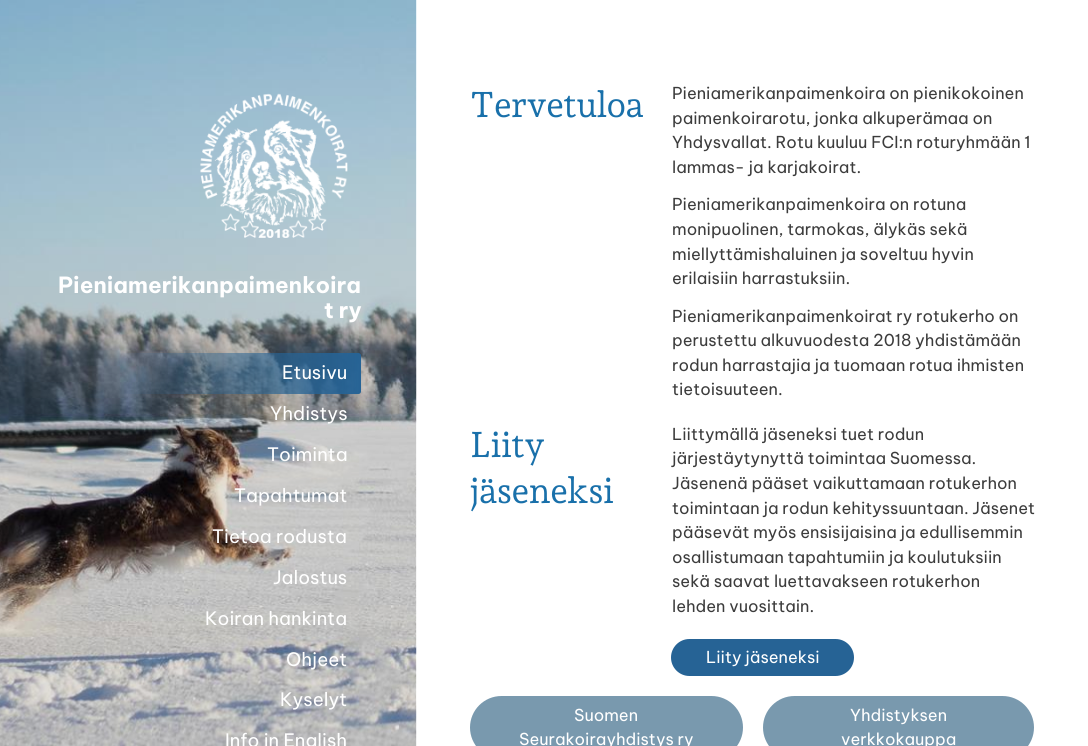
#include <cairo.h>
#include <math.h>
#include <stddef.h>


static void set_color(cairo_t *cr, unsigned color) {
    cairo_set_source_rgb(cr, (color >> 16) / 255.0, (color >> 8 & 255) / 255.0, (color & 255) / 255.0);
}

static void draw_text(cairo_t *cr, double x, double y, const char *s, const char *family, double size, int italic, int bold, unsigned color) {
    cairo_select_font_face(cr, family, italic ? CAIRO_FONT_SLANT_ITALIC : CAIRO_FONT_SLANT_NORMAL,
        bold ? CAIRO_FONT_WEIGHT_BOLD : CAIRO_FONT_WEIGHT_NORMAL);
    cairo_set_font_size(cr, size);
    set_color(cr, color);
    cairo_move_to(cr, x, y);
    cairo_show_text(cr, s);
}

static void draw_spaced(cairo_t *cr, double x, double y, const char *s, double letter, double word) {
    cairo_move_to(cr, x, y);
    while (*s) {
        char ch[5] = {0};
        int n = 0;
        do ch[n++] = *s++; while ((*s & 0xC0) == 0x80);
        cairo_show_text(cr, ch);
        cairo_rel_move_to(cr, letter + word * (*ch == ' '), 0);
    }
}

static void rounded_rect(cairo_t *cr, double x, double y, double w, double h, double r) {
    cairo_new_sub_path(cr);
    cairo_arc(cr, x + w - r, y + h - r, r, 0, M_PI / 2);
    cairo_arc(cr, x + r, y + h - r, r, M_PI / 2, M_PI);
    cairo_arc(cr, x + r, y + r, r, M_PI, 1.5 * M_PI);
    cairo_arc(cr, x + w - r, y + r, r, 1.5 * M_PI, 2 * M_PI);
    cairo_close_path(cr);
}

static void draw_image(cairo_t *cr, const char *path, double x, double y, double w, double h) {
    cairo_surface_t *image = cairo_image_surface_create_from_png(path);
    cairo_save(cr);
    cairo_set_source_surface(cr, image, x, y);
    cairo_rectangle(cr, x, y, w, h);
    cairo_fill(cr);
    cairo_restore(cr);
    cairo_surface_destroy(image);
}

int main(void) {
    cairo_surface_t *surface = cairo_image_surface_create(CAIRO_FORMAT_RGB24, 1088, 746);
    cairo_t *cr = cairo_create(surface);
    cairo_font_options_t *options = cairo_font_options_create();
    cairo_font_options_set_hint_metrics(options, CAIRO_HINT_METRICS_OFF);
    cairo_font_options_set_hint_style(options, CAIRO_HINT_STYLE_NONE);
    cairo_set_font_options(cr, options);
    cairo_set_miter_limit(cr, 4);
    set_color(cr, 0xFFFFFF);
    cairo_paint(cr);
    draw_image(cr, "assets/img1.png", 0, 0, 417, 746);
    draw_image(cr, "assets/img2.png", 200, 93, 148, 145);
    draw_text(cr, 58, 293, "Pieniamerikanpaimenkoira", "Be Vietnam Pro", 22.25, 0, 1, 0xFFFFFF);
    draw_text(cr, 324, 318, "t ry", "Be Vietnam Pro", 22.25, 0, 1, 0xFFFFFF);
    draw_text(cr, 282, 379, "Etusivu", "Be Vietnam Pro", 18.5, 0, 0, 0xFFFFFF);
    draw_text(cr, 270, 420, "Yhdistys", "Be Vietnam Pro", 18.5, 0, 0, 0xFFFFFF);
    draw_text(cr, 267, 461, "Toiminta", "Be Vietnam Pro", 18.5, 0, 0, 0xFFFFFF);
    draw_text(cr, 234, 502, "Tapahtumat", "Be Vietnam Pro", 18.5, 0, 0, 0xFFFFFF);
    draw_text(cr, 212, 543, "Tietoa rodusta", "Be Vietnam Pro", 18.5, 0, 0, 0xFFFFFF);
    draw_text(cr, 273, 584, "Jalostus", "Be Vietnam Pro", 18.5, 0, 0, 0xFFFFFF);
    draw_text(cr, 205, 625, "Koiran hankinta", "Be Vietnam Pro", 18.5, 0, 0, 0xFFFFFF);
    draw_text(cr, 286, 666, "Ohjeet", "Be Vietnam Pro", 18.5, 0, 0, 0xFFFFFF);
    draw_text(cr, 280, 706, "Kyselyt", "Be Vietnam Pro", 18.5, 0, 0, 0xFFFFFF);
    draw_text(cr, 225, 747, "Info in English", "Be Vietnam Pro", 18.5, 0, 0, 0xFFFFFF);
    cairo_select_font_face(cr, "Andada Pro", CAIRO_FONT_SLANT_NORMAL, CAIRO_FONT_WEIGHT_NORMAL);
    cairo_set_font_size(cr, 35.5);
    set_color(cr, 0x1970AA);
    draw_spaced(cr, 470, 117, "Tervetuloa", -0.5, 0);
    draw_text(cr, 672, 99, "Pieniamerikanpaimenkoira on pienikokoinen", "Be Vietnam Pro", 16.4, 0, 0, 0x3C3C3C);
    draw_text(cr, 672, 124, "paimenkoirarotu, jonka alkuperämaa on", "Be Vietnam Pro", 16.4, 0, 0, 0x3C3C3C);
    draw_text(cr, 672, 148, "Yhdysvallat. Rotu kuuluu FCI:n roturyhmään 1", "Be Vietnam Pro", 16.4, 0, 0, 0x3C3C3C);
    draw_text(cr, 672, 173, "lammas- ja karjakoirat.", "Be Vietnam Pro", 16.4, 0, 0, 0x3C3C3C);
    draw_text(cr, 672, 210, "Pieniamerikanpaimenkoira on rotuna", "Be Vietnam Pro", 16.4, 0, 0, 0x3C3C3C);
    draw_text(cr, 672, 235, "monipuolinen, tarmokas, älykäs sekä", "Be Vietnam Pro", 16.4, 0, 0, 0x3C3C3C);
    draw_text(cr, 672, 260, "miellyttämishaluinen ja soveltuu hyvin", "Be Vietnam Pro", 16.4, 0, 0, 0x3C3C3C);
    draw_text(cr, 672, 284, "erilaisiin harrastuksiin.", "Be Vietnam Pro", 16.4, 0, 0, 0x3C3C3C);
    draw_text(cr, 672, 322, "Pieniamerikanpaimenkoirat ry rotukerho on", "Be Vietnam Pro", 16.4, 0, 0, 0x3C3C3C);
    draw_text(cr, 672, 346, "perustettu alkuvuodesta 2018 yhdistämään", "Be Vietnam Pro", 16.4, 0, 0, 0x3C3C3C);
    draw_text(cr, 672, 371, "rodun harrastajia ja tuomaan rotua ihmisten", "Be Vietnam Pro", 16.4, 0, 0, 0x3C3C3C);
    draw_text(cr, 672, 395, "tietoisuuteen.", "Be Vietnam Pro", 16.4, 0, 0, 0x3C3C3C);
    cairo_select_font_face(cr, "Andada Pro", CAIRO_FONT_SLANT_NORMAL, CAIRO_FONT_WEIGHT_NORMAL);
    cairo_set_font_size(cr, 35.5);
    set_color(cr, 0x1970AA);
    draw_spaced(cr, 470, 457, "Liity", -0.5, 0);
    draw_spaced(cr, 470, 503, "jäseneksi", -0.5, 0);
    draw_text(cr, 672, 440, "Liittymällä jäseneksi tuet rodun", "Be Vietnam Pro", 16.4, 0, 0, 0x3C3C3C);
    draw_text(cr, 672, 464, "järjestäytynyttä toimintaa Suomessa.", "Be Vietnam Pro", 16.4, 0, 0, 0x3C3C3C);
    draw_text(cr, 672, 489, "Jäsenenä pääset vaikuttamaan rotukerhon", "Be Vietnam Pro", 16.4, 0, 0, 0x3C3C3C);
    draw_text(cr, 672, 514, "toimintaan ja rodun kehityssuuntaan. Jäsenet", "Be Vietnam Pro", 16.4, 0, 0, 0x3C3C3C);
    draw_text(cr, 672, 538, "pääsevät myös ensisijaisina ja edullisemmin", "Be Vietnam Pro", 16.4, 0, 0, 0x3C3C3C);
    draw_text(cr, 672, 563, "osallistumaan tapahtumiin ja koulutuksiin", "Be Vietnam Pro", 16.4, 0, 0, 0x3C3C3C);
    draw_text(cr, 672, 587, "sekä saavat luettavakseen rotukerhon", "Be Vietnam Pro", 16.4, 0, 0, 0x3C3C3C);
    draw_text(cr, 672, 612, "lehden vuosittain.", "Be Vietnam Pro", 16.4, 0, 0, 0x3C3C3C);
    set_color(cr, 0x266395);
    rounded_rect(cr, 671, 639, 183, 37, 18.5);
    cairo_fill(cr);
    draw_text(cr, 706, 663, "Liity jäseneksi", "Be Vietnam Pro", 16.4, 0, 0, 0xFFFFFF);
    set_color(cr, 0x7999AE);
    rounded_rect(cr, 470, 696, 273, 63, 31.5);
    cairo_fill(cr);
    draw_text(cr, 574, 721, "Suomen", "Be Vietnam Pro", 16.4, 0, 0, 0xFFFFFF);
    draw_text(cr, 519, 745, "Seurakoirayhdistys ry", "Be Vietnam Pro", 16.4, 0, 0, 0xFFFFFF);
    set_color(cr, 0x7999AE);
    rounded_rect(cr, 763, 696, 271, 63, 31.5);
    cairo_fill(cr);
    draw_text(cr, 850, 721, "Yhdistyksen", "Be Vietnam Pro", 16.4, 0, 0, 0xFFFFFF);
    draw_text(cr, 841, 745, "verkkokauppa", "Be Vietnam Pro", 16.4, 0, 0, 0xFFFFFF);
    cairo_surface_write_to_png(surface, "output.png");
    cairo_font_options_destroy(options);
    cairo_destroy(cr);
    cairo_surface_destroy(surface);
    return 0;
}
